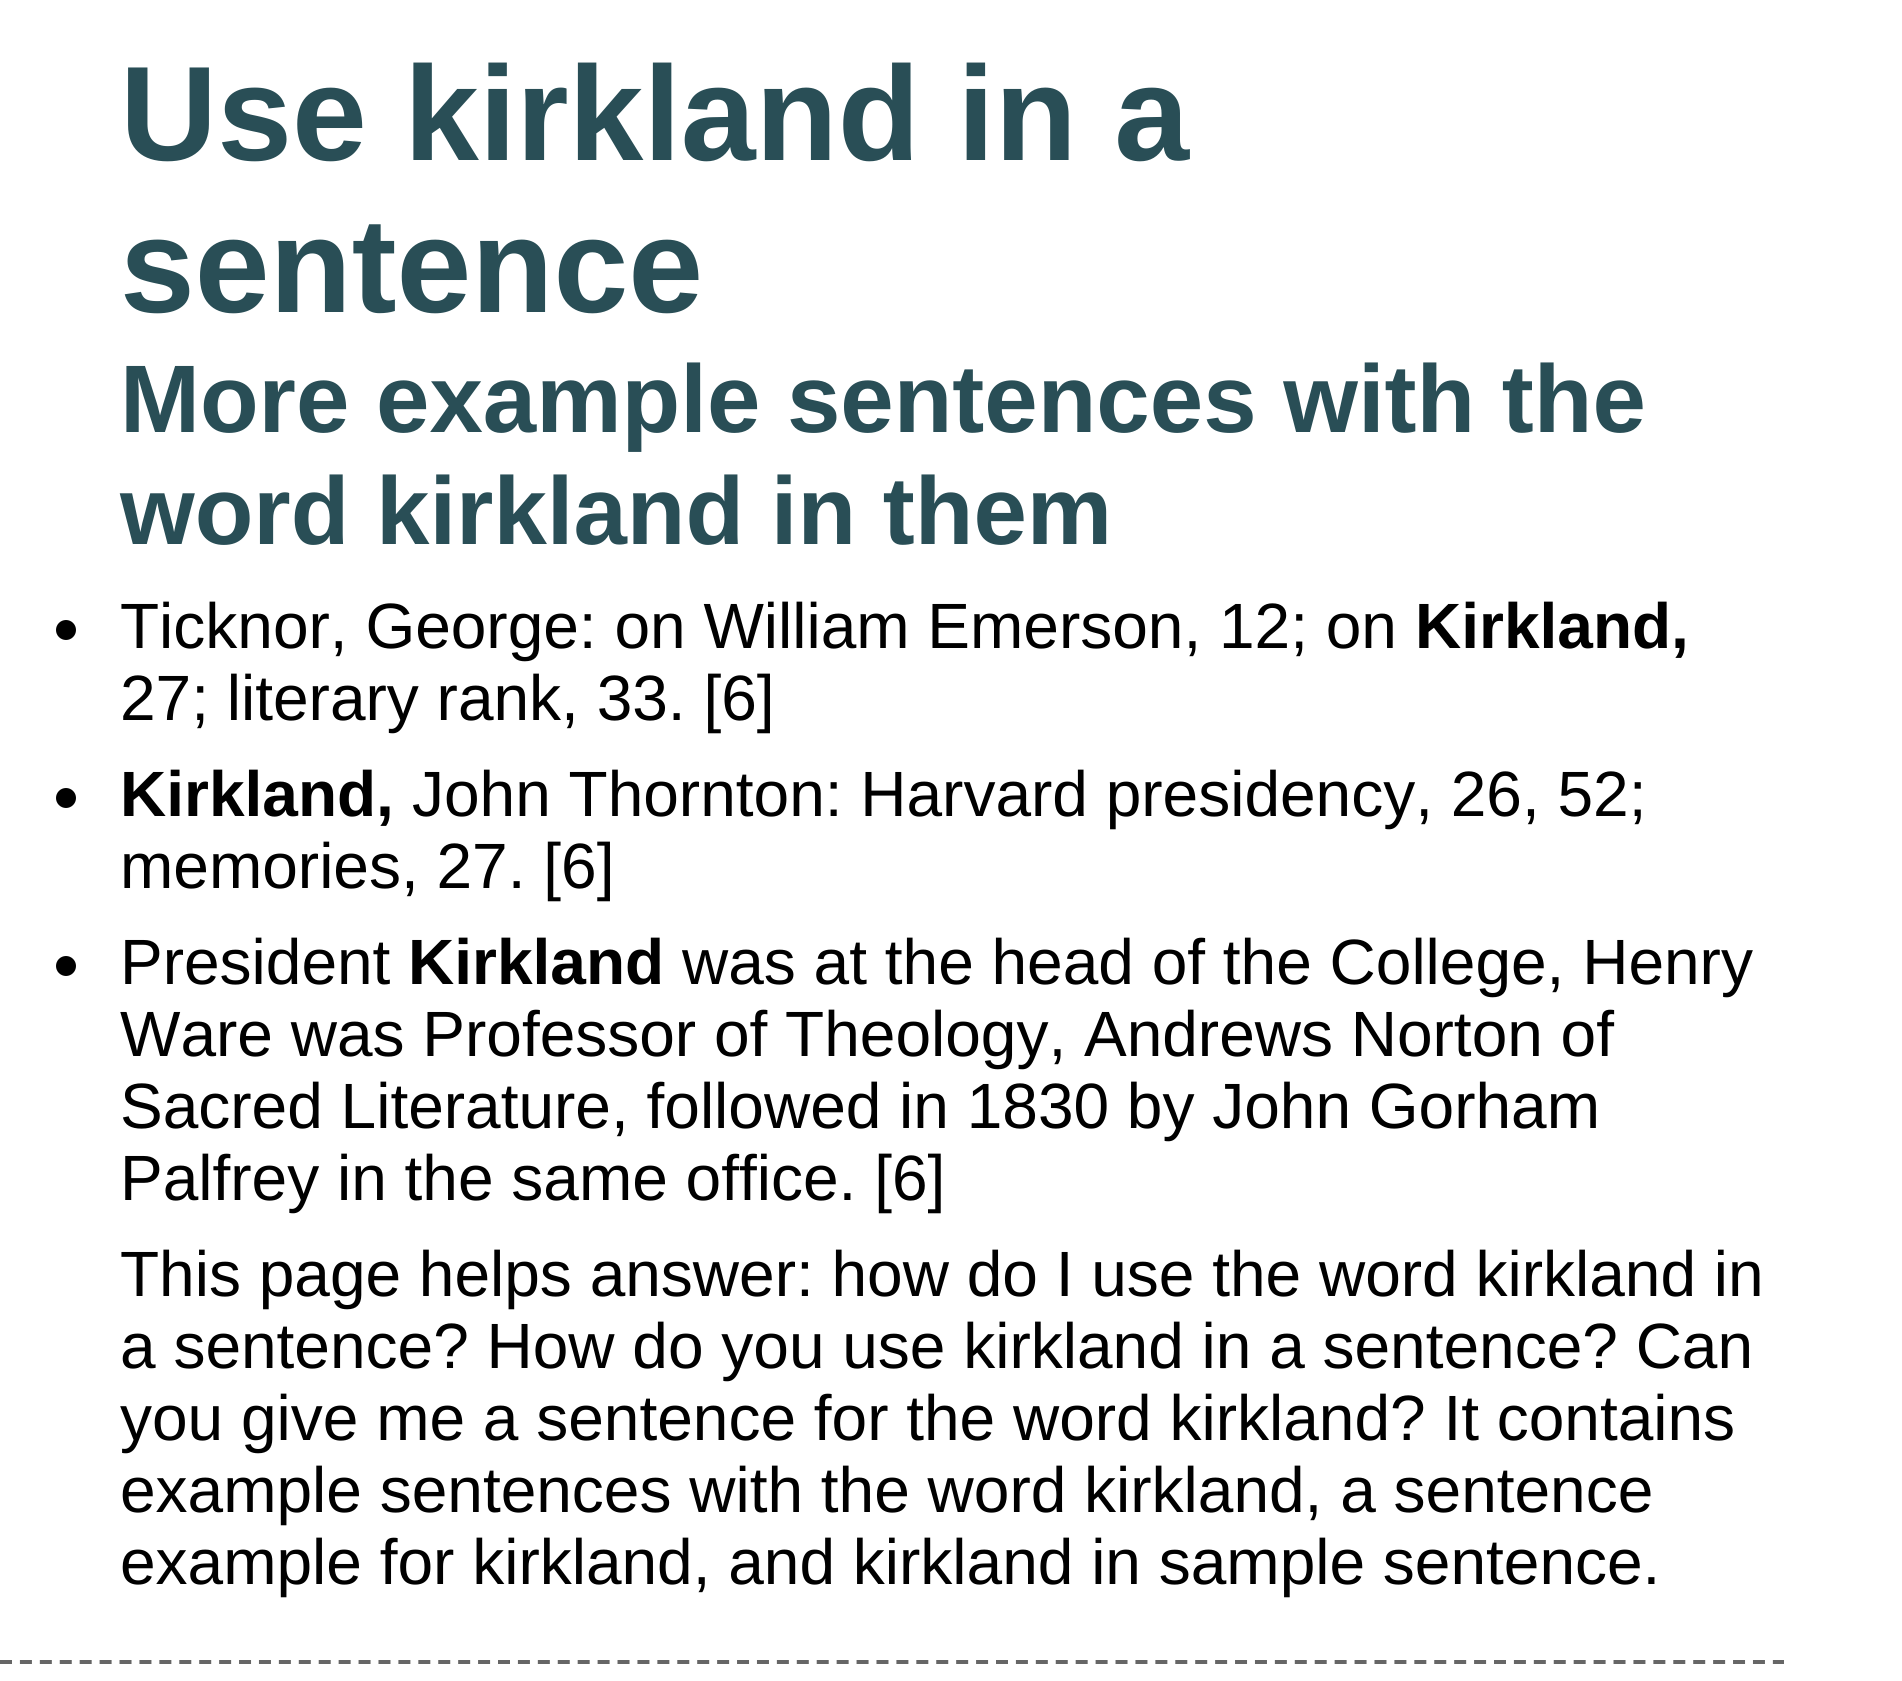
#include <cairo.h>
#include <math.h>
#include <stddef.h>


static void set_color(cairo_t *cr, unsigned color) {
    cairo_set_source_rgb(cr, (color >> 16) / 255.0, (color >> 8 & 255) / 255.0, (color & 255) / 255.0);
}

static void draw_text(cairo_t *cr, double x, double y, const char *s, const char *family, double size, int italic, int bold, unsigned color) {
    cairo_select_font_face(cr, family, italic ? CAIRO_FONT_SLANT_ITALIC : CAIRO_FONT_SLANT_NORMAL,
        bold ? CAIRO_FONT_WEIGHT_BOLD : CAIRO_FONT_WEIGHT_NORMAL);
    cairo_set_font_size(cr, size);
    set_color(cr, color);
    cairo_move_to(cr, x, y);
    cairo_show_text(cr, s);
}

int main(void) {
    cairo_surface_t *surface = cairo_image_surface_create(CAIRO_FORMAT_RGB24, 1902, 1681);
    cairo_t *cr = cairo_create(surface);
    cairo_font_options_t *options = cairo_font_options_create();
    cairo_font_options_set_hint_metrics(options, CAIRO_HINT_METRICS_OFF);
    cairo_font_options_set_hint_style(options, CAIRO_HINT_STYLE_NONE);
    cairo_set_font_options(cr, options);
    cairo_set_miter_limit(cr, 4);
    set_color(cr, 0xFFFFFF);
    cairo_paint(cr);
    draw_text(cr, 120, 160, "Use kirkland in a", "Liberation Sans", 134.5, 0, 1, 0x294E56);
    draw_text(cr, 120, 312, "sentence", "Liberation Sans", 134.5, 0, 1, 0x294E56);
    draw_text(cr, 120, 432, "More example sentences with the", "Liberation Sans", 96, 0, 1, 0x294E56);
    draw_text(cr, 120, 544, "word kirkland in them", "Liberation Sans", 96, 0, 1, 0x294E56);
    set_color(cr, 0x000000);
    cairo_new_path(cr);
    cairo_arc(cr, 66, 630, 10, 0, 2 * M_PI);
    cairo_fill(cr);
    draw_text(cr, 120, 648, "Ticknor, George: on William Emerson, 12; on", "Liberation Sans", 64, 0, 0, 0x000000);
    draw_text(cr, 1415, 648, "Kirkland,", "Liberation Sans", 64, 0, 1, 0x000000);
    draw_text(cr, 120, 720, "27; literary rank, 33. [6]", "Liberation Sans", 64, 0, 0, 0x000000);
    cairo_new_path(cr);
    cairo_arc(cr, 66, 798, 10, 0, 2 * M_PI);
    cairo_fill(cr);
    draw_text(cr, 120, 816, "Kirkland,", "Liberation Sans", 64, 0, 1, 0x000000);
    draw_text(cr, 412, 816, "John Thornton: Harvard presidency, 26, 52;", "Liberation Sans", 64, 0, 0, 0x000000);
    draw_text(cr, 120, 888, "memories, 27. [6]", "Liberation Sans", 64, 0, 0, 0x000000);
    cairo_new_path(cr);
    cairo_arc(cr, 66, 966, 10, 0, 2 * M_PI);
    cairo_fill(cr);
    draw_text(cr, 120, 984, "President", "Liberation Sans", 64, 0, 0, 0x000000);
    draw_text(cr, 408, 984, "Kirkland", "Liberation Sans", 64, 0, 1, 0x000000);
    draw_text(cr, 682, 984, "was at the head of the College, Henry", "Liberation Sans", 64, 0, 0, 0x000000);
    draw_text(cr, 120, 1056, "Ware was Professor of Theology, Andrews Norton of", "Liberation Sans", 64, 0, 0, 0x000000);
    draw_text(cr, 120, 1128, "Sacred Literature, followed in 1830 by John Gorham", "Liberation Sans", 64, 0, 0, 0x000000);
    draw_text(cr, 120, 1200, "Palfrey in the same office. [6]", "Liberation Sans", 64, 0, 0, 0x000000);
    draw_text(cr, 120, 1296, "This page helps answer: how do I use the word kirkland in", "Liberation Sans", 64, 0, 0, 0x000000);
    draw_text(cr, 120, 1368, "a sentence? How do you use kirkland in a sentence? Can", "Liberation Sans", 64, 0, 0, 0x000000);
    draw_text(cr, 120, 1440, "you give me a sentence for the word kirkland? It contains", "Liberation Sans", 64, 0, 0, 0x000000);
    draw_text(cr, 120, 1512, "example sentences with the word kirkland, a sentence", "Liberation Sans", 64, 0, 0, 0x000000);
    draw_text(cr, 120, 1584, "example for kirkland, and kirkland in sample sentence.", "Liberation Sans", 64, 0, 0, 0x000000);
    cairo_new_path(cr);
    cairo_move_to(cr, 0, 1662);
    cairo_line_to(cr, 1784, 1662);
    set_color(cr, 0x666666);
    cairo_set_line_width(cr, 4);
    cairo_set_dash(cr, (double[]){12, 7.92}, 2, 0);
    cairo_stroke(cr);
    cairo_surface_write_to_png(surface, "output.png");
    cairo_font_options_destroy(options);
    cairo_destroy(cr);
    cairo_surface_destroy(surface);
    return 0;
}
